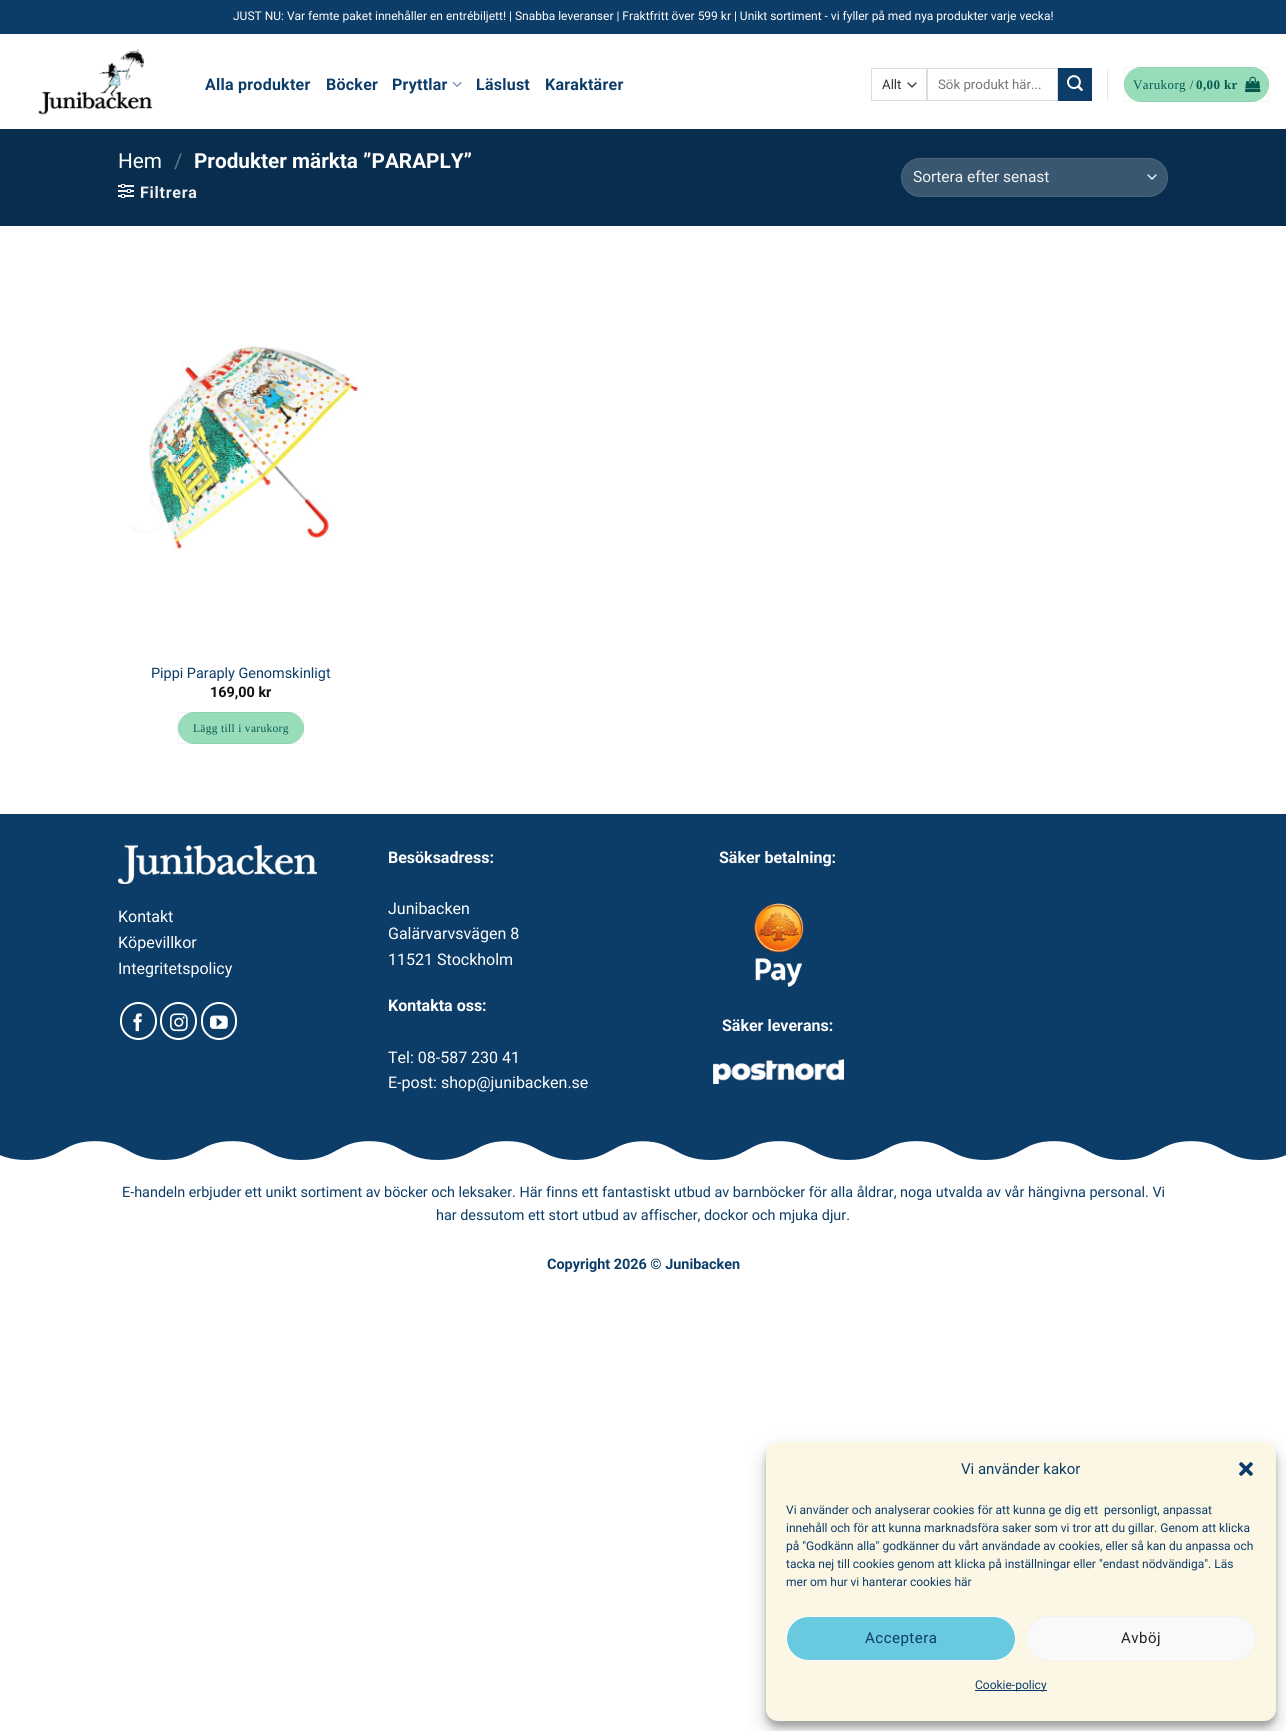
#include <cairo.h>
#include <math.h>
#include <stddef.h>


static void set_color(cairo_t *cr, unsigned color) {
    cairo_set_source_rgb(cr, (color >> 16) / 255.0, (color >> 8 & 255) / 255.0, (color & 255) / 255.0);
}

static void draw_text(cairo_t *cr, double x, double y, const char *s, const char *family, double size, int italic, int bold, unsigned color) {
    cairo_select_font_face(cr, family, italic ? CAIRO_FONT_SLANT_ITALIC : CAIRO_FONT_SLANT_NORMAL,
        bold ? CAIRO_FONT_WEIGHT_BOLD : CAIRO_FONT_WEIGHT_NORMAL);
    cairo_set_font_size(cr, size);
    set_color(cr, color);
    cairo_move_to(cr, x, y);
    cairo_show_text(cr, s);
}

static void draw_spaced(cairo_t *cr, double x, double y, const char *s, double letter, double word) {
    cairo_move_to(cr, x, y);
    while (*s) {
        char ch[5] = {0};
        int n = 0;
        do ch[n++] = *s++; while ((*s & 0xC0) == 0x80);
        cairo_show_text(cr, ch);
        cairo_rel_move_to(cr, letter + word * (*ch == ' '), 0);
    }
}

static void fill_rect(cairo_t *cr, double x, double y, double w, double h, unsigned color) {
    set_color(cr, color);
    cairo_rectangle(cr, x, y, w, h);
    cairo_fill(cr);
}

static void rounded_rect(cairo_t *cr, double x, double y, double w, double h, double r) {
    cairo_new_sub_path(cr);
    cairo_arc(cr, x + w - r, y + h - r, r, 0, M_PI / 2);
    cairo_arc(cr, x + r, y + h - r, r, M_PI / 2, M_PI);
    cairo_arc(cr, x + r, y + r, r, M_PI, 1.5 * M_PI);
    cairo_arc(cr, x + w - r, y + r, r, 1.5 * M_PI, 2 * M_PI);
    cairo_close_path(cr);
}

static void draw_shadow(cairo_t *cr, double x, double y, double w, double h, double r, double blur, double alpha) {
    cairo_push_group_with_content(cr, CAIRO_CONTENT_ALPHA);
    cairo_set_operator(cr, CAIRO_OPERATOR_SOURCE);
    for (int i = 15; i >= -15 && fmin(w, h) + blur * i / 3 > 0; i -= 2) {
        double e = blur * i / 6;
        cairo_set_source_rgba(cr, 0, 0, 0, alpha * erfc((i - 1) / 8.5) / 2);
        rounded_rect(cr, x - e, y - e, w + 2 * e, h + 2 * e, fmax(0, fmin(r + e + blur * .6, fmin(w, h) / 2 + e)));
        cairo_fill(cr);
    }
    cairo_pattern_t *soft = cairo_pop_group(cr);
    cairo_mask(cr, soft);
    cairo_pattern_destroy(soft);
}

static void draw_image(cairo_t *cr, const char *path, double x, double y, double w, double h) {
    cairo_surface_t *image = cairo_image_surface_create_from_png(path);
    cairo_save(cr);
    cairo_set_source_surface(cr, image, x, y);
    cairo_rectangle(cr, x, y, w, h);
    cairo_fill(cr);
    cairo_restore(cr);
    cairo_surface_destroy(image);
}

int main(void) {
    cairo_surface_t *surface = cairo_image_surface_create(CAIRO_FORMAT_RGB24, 1286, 1731);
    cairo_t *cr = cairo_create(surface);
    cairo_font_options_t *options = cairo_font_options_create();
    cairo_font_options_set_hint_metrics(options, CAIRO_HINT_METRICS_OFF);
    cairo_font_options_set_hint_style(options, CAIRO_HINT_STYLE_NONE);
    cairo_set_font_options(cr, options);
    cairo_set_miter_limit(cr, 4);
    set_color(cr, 0xFFFFFF);
    cairo_paint(cr);
    fill_rect(cr, 0, 0, 1286, 34, 0x0C3C68);
    draw_text(cr, 233, 20, "JUST NU: Var femte paket innehåller en entrébiljett! | Snabba leveranser | Fraktfritt över 599 kr | Unikt sortiment - vi fyller på med nya produkter varje vecka!", "Roboto", 12, 0, 0, 0xFFFFFF);
    draw_image(cr, "assets/img1.png", 38, 49, 115, 66);
    cairo_select_font_face(cr, "Roboto", CAIRO_FONT_SLANT_NORMAL, CAIRO_FONT_WEIGHT_BOLD);
    cairo_set_font_size(cr, 16);
    set_color(cr, 0x0C3C68);
    draw_spaced(cr, 205, 90, "Alla produkter", 0.25, 0);
    draw_spaced(cr, 326, 90, "Böcker", 0.25, 0);
    draw_spaced(cr, 392, 90, "Pryttlar", 0.25, 0);
    draw_image(cr, "assets/img2.png", 452, 81, 10, 6);
    draw_spaced(cr, 476, 90, "Läslust", 0.25, 0);
    draw_spaced(cr, 545, 90, "Karaktärer", 0.25, 0);
    cairo_new_path(cr);
    cairo_move_to(cr, 908, 83);
    cairo_line_to(cr, 912, 87);
    cairo_line_to(cr, 916, 83);
    set_color(cr, 0x333333);
    cairo_set_line_width(cr, 1.3);
    cairo_set_line_cap(cr, CAIRO_LINE_CAP_ROUND);
    cairo_set_line_join(cr, CAIRO_LINE_JOIN_ROUND);
    cairo_stroke(cr);
    cairo_rectangle(cr, 871.5, 68.5, 55, 32);
    set_color(cr, 0xDDDDDD);
    cairo_set_line_width(cr, 1);
    cairo_set_line_cap(cr, CAIRO_LINE_CAP_BUTT);
    cairo_set_line_join(cr, CAIRO_LINE_JOIN_MITER);
    cairo_stroke(cr);
    draw_text(cr, 882, 89, "Allt", "Roboto", 13.25, 0, 0, 0x333333);
    cairo_rectangle(cr, 927.5, 68.5, 130, 32);
    set_color(cr, 0xDDDDDD);
    cairo_stroke(cr);
    draw_text(cr, 938, 89, "Sök produkt här...", "Roboto", 13.25, 0, 0, 0x757575);
    set_color(cr, 0x0C3C68);
    cairo_rectangle(cr, 1058.5, 68.5, 33, 32);
    cairo_fill_preserve(cr);
    set_color(cr, 0x0B3963);
    cairo_stroke(cr);
    draw_image(cr, "assets/img3.png", 1067, 75, 16, 16);
    fill_rect(cr, 1107, 70, 1, 30, 0xE6E6E6);
    set_color(cr, 0x98DCBA);
    rounded_rect(cr, 1124, 67, 145, 35, 17.5);
    cairo_fill(cr);
    cairo_rectangle(cr, 1124.5, 67.5, 144, 34);
    cairo_set_source_rgba(cr, 0, 0, 0, 0.05);
    cairo_stroke(cr);
    cairo_select_font_face(cr, "Liberation Serif", CAIRO_FONT_SLANT_NORMAL, CAIRO_FONT_WEIGHT_NORMAL);
    cairo_set_font_size(cr, 13);
    set_color(cr, 0x055A4E);
    draw_spaced(cr, 1133, 89, "Varukorg /", 0.4, 0);
    cairo_select_font_face(cr, "Liberation Serif", CAIRO_FONT_SLANT_NORMAL, CAIRO_FONT_WEIGHT_BOLD);
    draw_spaced(cr, 1196, 89, "0,00 kr", 0.4, 0);
    draw_image(cr, "assets/img4.png", 1245, 76, 16, 17);
    fill_rect(cr, 0, 129, 1286, 97, 0x092D4E);
    fill_rect(cr, 15, 129, 1256, 1, 0x092F51);
    draw_text(cr, 118, 168, "Hem", "Roboto", 20.75, 0, 0, 0xFFFFFF);
    draw_text(cr, 174, 168, "/", "Roboto", 20.75, 0, 0, 0x5F778C);
    draw_text(cr, 194, 168, "Produkter märkta ”PARAPLY”", "Roboto", 20.75, 0, 1, 0xFFFFFF);
    draw_image(cr, "assets/img5.png", 118, 184, 16, 14);
    cairo_set_font_size(cr, 16);
    set_color(cr, 0xF1F1F1);
    draw_spaced(cr, 140, 198, "Filtrera", 0.75, 0);
    set_color(cr, 0x3A5771);
    rounded_rect(cr, 901, 158, 267, 39, 19.5);
    cairo_fill(cr);
    cairo_new_path(cr);
    cairo_move_to(cr, 1148, 175);
    cairo_line_to(cr, 1152, 179);
    cairo_line_to(cr, 1156, 175);
    set_color(cr, 0xFFFFFF);
    cairo_set_line_width(cr, 1.3);
    cairo_set_line_cap(cr, CAIRO_LINE_CAP_ROUND);
    cairo_set_line_join(cr, CAIRO_LINE_JOIN_ROUND);
    cairo_stroke(cr);
    rounded_rect(cr, 901.5, 158.5, 266, 38, 19);
    cairo_set_source_rgba(cr, 1, 1, 1, 0.09);
    cairo_set_line_width(cr, 1);
    cairo_set_line_cap(cr, CAIRO_LINE_CAP_BUTT);
    cairo_set_line_join(cr, CAIRO_LINE_JOIN_MITER);
    cairo_stroke(cr);
    draw_text(cr, 913, 182, "Sortera efter senast", "Roboto", 15.5, 0, 0, 0xF1F1F1);
    draw_image(cr, "assets/img6.png", 129, 345, 233, 205);
    draw_text(cr, 151, 678, "Pippi Paraply Genomskinligt", "Roboto", 14.4, 0, 0, 0x0C3C68);
    draw_text(cr, 210, 697, "169,00 kr", "Roboto", 14.4, 0, 1, 0x111111);
    set_color(cr, 0x98DCBA);
    rounded_rect(cr, 178, 712, 126, 32, 16);
    cairo_fill(cr);
    cairo_rectangle(cr, 178.5, 712.5, 125, 31);
    cairo_set_source_rgba(cr, 0, 0, 0, 0.05);
    cairo_stroke(cr);
    cairo_select_font_face(cr, "Liberation Serif", CAIRO_FONT_SLANT_NORMAL, CAIRO_FONT_WEIGHT_NORMAL);
    cairo_set_font_size(cr, 11.5);
    set_color(cr, 0x055A4E);
    draw_spaced(cr, 193, 732, "Lägg till i varukorg", 0.3, 0);
    fill_rect(cr, 0, 815, 1286, 326, 0x0C3C68);
    fill_rect(cr, 0, 814, 1286, 1, 0x0B3963);
    draw_image(cr, "assets/img7.png", 118, 845, 199, 39);
    draw_text(cr, 118, 922, "Kontakt", "Roboto", 16, 0, 0, 0xFFFFFF);
    draw_text(cr, 118, 948, "Köpevillkor", "Roboto", 16, 0, 0, 0xFFFFFF);
    draw_text(cr, 118, 974, "Integritetspolicy", "Roboto", 16, 0, 0, 0xFFFFFF);
    rounded_rect(cr, 121, 1003, 35, 36, 17.5);
    cairo_set_line_width(cr, 2);
    cairo_stroke(cr);
    draw_image(cr, "assets/img8.png", 133, 1013, 9, 19);
    rounded_rect(cr, 161, 1003, 35, 36, 17.5);
    cairo_stroke(cr);
    draw_image(cr, "assets/img9.png", 170, 1013, 18, 19);
    rounded_rect(cr, 202, 1003, 34, 36, 17);
    cairo_stroke(cr);
    draw_image(cr, "assets/img10.png", 210, 1015, 18, 14);
    draw_text(cr, 388, 863, "Besöksadress:", "Roboto", 16, 0, 1, 0xFFFFFF);
    draw_text(cr, 388, 914, "Junibacken", "Roboto", 16, 0, 0, 0xFFFFFF);
    draw_text(cr, 388, 939, "Galärvarvsvägen 8", "Roboto", 16, 0, 0, 0xFFFFFF);
    draw_text(cr, 388, 965, "11521 Stockholm", "Roboto", 16, 0, 0, 0xFFFFFF);
    draw_text(cr, 388, 1011, "Kontakta oss:", "Roboto", 16, 0, 1, 0xFFFFFF);
    draw_text(cr, 388, 1063, "Tel: 08-587 230 41", "Roboto", 16, 0, 0, 0xFFFFFF);
    draw_text(cr, 388, 1088, "E-post: shop@junibacken.se", "Roboto", 16, 0, 0, 0xFFFFFF);
    draw_text(cr, 719, 863, "Säker betalning:", "Roboto", 16, 0, 1, 0xFFFFFF);
    draw_image(cr, "assets/img11.png", 754, 903, 50, 84);
    draw_text(cr, 722, 1031, "Säker leverans:", "Roboto", 16, 0, 1, 0xFFFFFF);
    draw_image(cr, "assets/img12.png", 713, 1059, 131, 25);
    draw_image(cr, "assets/img13.png", 0, 1141, 1286, 19);
    draw_text(cr, 122, 1197, "E-handeln erbjuder ett unikt sortiment av böcker och leksaker. Här finns ett fantastiskt utbud av barnböcker för alla åldrar, noga utvalda av vår hängivna personal. Vi", "Roboto", 14.4, 0, 0, 0x0C3C68);
    draw_text(cr, 436, 1220, "har dessutom ett stort utbud av affischer, dockor och mjuka djur.", "Roboto", 14.4, 0, 0, 0x0C3C68);
    draw_text(cr, 547, 1269, "Copyright 2026 © Junibacken", "Roboto", 14.4, 0, 1, 0x0C3C68);
    set_color(cr, 0x000000);
    draw_shadow(cr, 766, 1448, 510, 279, 12, 3, 0.23);
    draw_shadow(cr, 766, 1452, 510, 279, 12, 10, 0.19);
    set_color(cr, 0xFCF7E4);
    rounded_rect(cr, 766, 1442, 510, 279, 12);
    cairo_fill(cr);
    draw_text(cr, 961, 1474, "Vi använder kakor", "Roboto", 15, 0, 0, 0x0C3C68);
    draw_image(cr, "assets/img14.png", 1239, 1462, 14, 14);
    draw_text(cr, 786, 1514, "Vi använder och analyserar cookies för att kunna ge dig ett  personligt, anpassat", "Roboto", 12, 0, 0, 0x0C3C68);
    draw_text(cr, 786, 1532, "innehåll och för att kunna marknadsföra saker som vi tror att du gillar. Genom att klicka", "Roboto", 12, 0, 0, 0x0C3C68);
    draw_text(cr, 786, 1550, "på \"Godkänn alla\" godkänner du vårt användade av cookies, eller så kan du anpassa och", "Roboto", 12, 0, 0, 0x0C3C68);
    draw_text(cr, 786, 1568, "tacka nej till cookies genom att klicka på inställningar eller \"endast nödvändiga\". Läs", "Roboto", 12, 0, 0, 0x0C3C68);
    draw_text(cr, 786, 1586, "mer om hur vi hanterar cookies här", "Roboto", 12, 0, 0, 0x0C3C68);
    set_color(cr, 0x69C9DE);
    rounded_rect(cr, 786.5, 1616.5, 229, 44, 22);
    cairo_fill_preserve(cr);
    set_color(cr, 0xFFFFFF);
    cairo_set_line_width(cr, 1);
    cairo_stroke(cr);
    cairo_set_font_size(cr, 15);
    set_color(cr, 0x0C3C68);
    draw_spaced(cr, 865, 1643, "Acceptera", 0.5, 0);
    set_color(cr, 0xF9F9F9);
    rounded_rect(cr, 1026.5, 1616.5, 229, 44, 22);
    cairo_fill_preserve(cr);
    set_color(cr, 0xF2F2F2);
    cairo_stroke(cr);
    set_color(cr, 0x222222);
    draw_spaced(cr, 1121, 1643, "Avböj", 0.5, 0);
    fill_rect(cr, 975, 1690, 72, 1, 0x0A396A);
    draw_text(cr, 975, 1689, "Cookie-policy", "Roboto", 12, 0, 0, 0x0C3C68);
    cairo_surface_write_to_png(surface, "output.png");
    cairo_font_options_destroy(options);
    cairo_destroy(cr);
    cairo_surface_destroy(surface);
    return 0;
}
